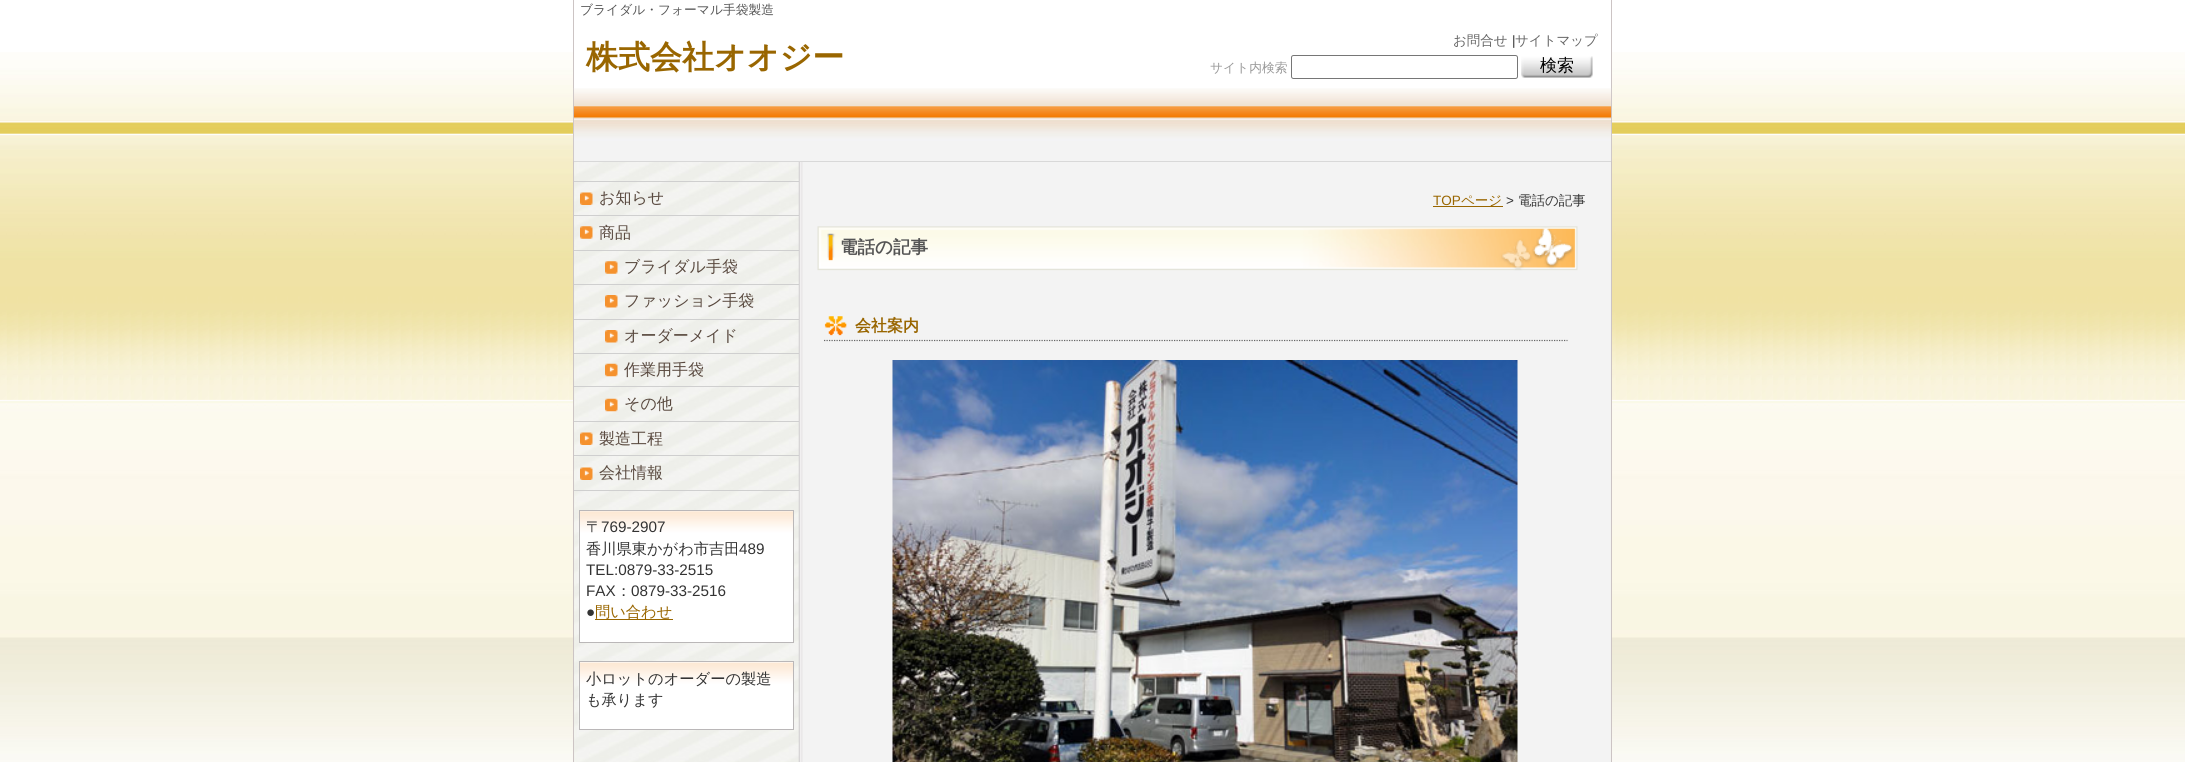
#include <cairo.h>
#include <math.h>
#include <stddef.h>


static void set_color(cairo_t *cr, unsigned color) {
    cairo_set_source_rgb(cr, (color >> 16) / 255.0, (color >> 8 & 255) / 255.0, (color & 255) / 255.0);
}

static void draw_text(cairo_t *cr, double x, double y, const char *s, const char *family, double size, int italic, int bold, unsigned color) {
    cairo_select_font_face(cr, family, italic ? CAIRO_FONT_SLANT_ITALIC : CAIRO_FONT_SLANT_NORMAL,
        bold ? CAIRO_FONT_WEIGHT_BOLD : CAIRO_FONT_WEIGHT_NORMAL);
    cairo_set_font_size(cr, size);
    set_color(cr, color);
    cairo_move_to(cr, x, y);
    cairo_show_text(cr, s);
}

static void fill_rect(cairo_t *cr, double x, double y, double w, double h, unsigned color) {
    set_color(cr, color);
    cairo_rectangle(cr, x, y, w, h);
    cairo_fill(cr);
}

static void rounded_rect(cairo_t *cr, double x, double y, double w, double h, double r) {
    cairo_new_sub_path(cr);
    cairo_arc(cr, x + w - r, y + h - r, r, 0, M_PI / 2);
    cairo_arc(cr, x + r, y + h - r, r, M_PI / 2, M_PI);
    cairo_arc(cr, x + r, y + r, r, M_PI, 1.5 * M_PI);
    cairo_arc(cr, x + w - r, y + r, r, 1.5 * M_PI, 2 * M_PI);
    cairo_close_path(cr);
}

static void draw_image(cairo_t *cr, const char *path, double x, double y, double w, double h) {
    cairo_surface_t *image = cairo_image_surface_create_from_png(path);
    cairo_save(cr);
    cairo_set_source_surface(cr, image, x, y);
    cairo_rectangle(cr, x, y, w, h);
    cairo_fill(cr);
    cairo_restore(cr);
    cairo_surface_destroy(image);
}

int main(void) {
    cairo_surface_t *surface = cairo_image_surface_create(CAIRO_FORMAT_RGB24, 2185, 762);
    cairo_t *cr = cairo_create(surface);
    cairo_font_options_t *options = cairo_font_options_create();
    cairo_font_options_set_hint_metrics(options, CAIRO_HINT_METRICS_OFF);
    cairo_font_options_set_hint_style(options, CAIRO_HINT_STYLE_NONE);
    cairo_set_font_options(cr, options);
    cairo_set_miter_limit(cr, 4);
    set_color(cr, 0xFFFFFF);
    cairo_paint(cr);
    draw_image(cr, "assets/img1.png", 0, 52, 2185, 710);
    draw_image(cr, "assets/img2.png", 574, 162, 1037, 600);
    fill_rect(cr, 1611, 0, 1, 762, 0xCCC4C4);
    fill_rect(cr, 573, 0, 1, 762, 0xCCC4C4);
    fill_rect(cr, 574, 52, 1037, 36, 0xFFFFFF);
    draw_text(cr, 580, 14, "ブライダル・フォーマル手袋製造", "WenQuanYi Zen Hei Medium", 12.75, 0, 0, 0x555555);
    draw_image(cr, "assets/img3.png", 573, 88, 1039, 73);
    draw_text(cr, 586, 68, "株式会社オオジー", "WenQuanYi Zen Hei", 32, 0, 1, 0x996600);
    draw_text(cr, 1453, 45, "お問合せ", "WenQuanYi Zen Hei Medium", 13.5, 0, 0, 0x666666);
    draw_text(cr, 1512, 45, "|", "Liberation Sans", 13.5, 0, 0, 0x333333);
    draw_text(cr, 1515, 45, "サイトマップ", "WenQuanYi Zen Hei Medium", 13.5, 0, 0, 0x666666);
    draw_text(cr, 1210, 72, "サイト内検索", "WenQuanYi Zen Hei Medium", 12.75, 0, 0, 0x999999);
    rounded_rect(cr, 1291.5, 55.5, 226, 23, 2);
    set_color(cr, 0x767676);
    cairo_set_line_width(cr, 1);
    cairo_stroke(cr);
    draw_image(cr, "assets/img4.png", 1521, 56, 72, 22);
    draw_text(cr, 1540, 71, "検索", "WenQuanYi Zen Hei Medium", 17, 0, 0, 0x000000);
    fill_rect(cr, 574, 161, 1037, 1, 0xD8D8D8);
    fill_rect(cr, 574, 490, 225, 1, 0xCFCFCF);
    draw_image(cr, "assets/img5.png", 580, 192, 13, 13);
    fill_rect(cr, 574, 181, 225, 1, 0xCFCFCF);
    draw_text(cr, 599, 203, "お知らせ", "WenQuanYi Zen Hei Medium", 16, 0, 0, 0x59493F);
    draw_image(cr, "assets/img6.png", 580, 226, 13, 13);
    fill_rect(cr, 574, 215, 225, 1, 0xCFCFCF);
    draw_text(cr, 599, 238, "商品", "WenQuanYi Zen Hei Medium", 16, 0, 0, 0x59493F);
    draw_image(cr, "assets/img7.png", 605, 261, 13, 13);
    fill_rect(cr, 574, 250, 225, 1, 0xCFCFCF);
    draw_text(cr, 624, 272, "ブライダル手袋", "WenQuanYi Zen Hei Medium", 16, 0, 0, 0x59493F);
    draw_image(cr, "assets/img8.png", 605, 295, 13, 13);
    fill_rect(cr, 574, 284, 225, 1, 0xCFCFCF);
    draw_text(cr, 624, 306, "ファッション手袋", "WenQuanYi Zen Hei Medium", 16, 0, 0, 0x59493F);
    draw_image(cr, "assets/img9.png", 605, 330, 13, 13);
    fill_rect(cr, 574, 319, 225, 1, 0xCFCFCF);
    draw_text(cr, 624, 341, "オーダーメイド", "WenQuanYi Zen Hei Medium", 16, 0, 0, 0x59493F);
    draw_image(cr, "assets/img10.png", 605, 363, 13, 14);
    fill_rect(cr, 574, 353, 225, 1, 0xCFCFCF);
    draw_text(cr, 624, 375, "作業用手袋", "WenQuanYi Zen Hei Medium", 16, 0, 0, 0x59493F);
    draw_image(cr, "assets/img11.png", 605, 398, 13, 14);
    fill_rect(cr, 574, 386, 225, 1, 0xCFCFCF);
    draw_text(cr, 624, 409, "その他", "WenQuanYi Zen Hei Medium", 16, 0, 0, 0x59493F);
    draw_image(cr, "assets/img12.png", 580, 432, 13, 13);
    fill_rect(cr, 574, 421, 225, 1, 0xCFCFCF);
    draw_text(cr, 599, 444, "製造工程", "WenQuanYi Zen Hei Medium", 16, 0, 0, 0x59493F);
    draw_image(cr, "assets/img13.png", 580, 467, 13, 13);
    fill_rect(cr, 574, 455, 225, 1, 0xCFCFCF);
    draw_text(cr, 599, 478, "会社情報", "WenQuanYi Zen Hei Medium", 16, 0, 0, 0x59493F);
    fill_rect(cr, 580, 511, 213, 131, 0xFFFFFF);
    draw_image(cr, "assets/img14.png", 578, 511, 215, 60);
    cairo_rectangle(cr, 579.5, 510.5, 214, 132);
    set_color(cr, 0xBAB7B8);
    cairo_stroke(cr);
    draw_text(cr, 586, 532, "〒", "WenQuanYi Zen Hei Medium", 15.25, 0, 0, 0x333333);
    draw_text(cr, 601, 532, "769-2907", "Liberation Sans", 15.25, 0, 0, 0x333333);
    draw_text(cr, 586, 554, "香川県東かがわ市吉田", "WenQuanYi Zen Hei Medium", 15.25, 0, 0, 0x333333);
    draw_text(cr, 739, 554, "489", "Liberation Sans", 15.25, 0, 0, 0x333333);
    draw_text(cr, 586, 575, "TEL:0879-33-2515", "Liberation Sans", 15.25, 0, 0, 0x333333);
    draw_text(cr, 586, 596, "FAX", "Liberation Sans", 15.25, 0, 0, 0x333333);
    draw_text(cr, 616, 596, "：", "WenQuanYi Zen Hei Medium", 15.25, 0, 0, 0x333333);
    draw_text(cr, 631, 596, "0879-33-2516", "Liberation Sans", 15.25, 0, 0, 0x333333);
    draw_text(cr, 586, 617, "●", "Liberation Sans", 15.25, 0, 0, 0x333333);
    fill_rect(cr, 595, 619, 78, 1, 0x996600);
    draw_text(cr, 595, 617, "問い合わせ", "WenQuanYi Zen Hei Medium", 15.25, 0, 0, 0x996600);
    fill_rect(cr, 580, 662, 213, 67, 0xFFFFFF);
    draw_image(cr, "assets/img15.png", 578, 662, 215, 63);
    cairo_rectangle(cr, 579.5, 661.5, 214, 68);
    set_color(cr, 0xBAB7B8);
    cairo_stroke(cr);
    draw_text(cr, 586, 684, "小ロットのオーダーの製造", "WenQuanYi Zen Hei Medium", 15.25, 0, 0, 0x333333);
    draw_text(cr, 586, 705, "も承ります", "WenQuanYi Zen Hei Medium", 15.25, 0, 0, 0x333333);
    draw_text(cr, 1433, 205, "TOP", "Liberation Sans", 13.5, 0, 0, 0x996600);
    fill_rect(cr, 1433, 206, 70, 1, 0x996600);
    draw_text(cr, 1461, 205, "ページ", "WenQuanYi Zen Hei Medium", 13.5, 0, 0, 0x996600);
    draw_text(cr, 1506, 205, ">", "Liberation Sans", 13.5, 0, 0, 0x333333);
    draw_text(cr, 1518, 205, "電話の記事", "WenQuanYi Zen Hei Medium", 13.5, 0, 0, 0x333333);
    draw_image(cr, "assets/img16.png", 817, 226, 761, 45);
    draw_text(cr, 840, 253, "電話の記事", "WenQuanYi Zen Hei", 17.5, 0, 1, 0x555555);
    draw_image(cr, "assets/img17.png", 824, 316, 23, 20);
    cairo_new_path(cr);
    cairo_move_to(cr, 824, 340.5);
    cairo_line_to(cr, 1567.5, 340.5);
    set_color(cr, 0x666666);
    cairo_set_line_width(cr, 1.2);
    cairo_set_dash(cr, (double[]){1.25, 1.25}, 2, 0);
    cairo_stroke(cr);
    draw_text(cr, 855, 331, "会社案内", "WenQuanYi Zen Hei", 16, 0, 1, 0x996600);
    draw_image(cr, "assets/img18.png", 892, 360, 626, 402);
    cairo_surface_write_to_png(surface, "output.png");
    cairo_font_options_destroy(options);
    cairo_destroy(cr);
    cairo_surface_destroy(surface);
    return 0;
}
